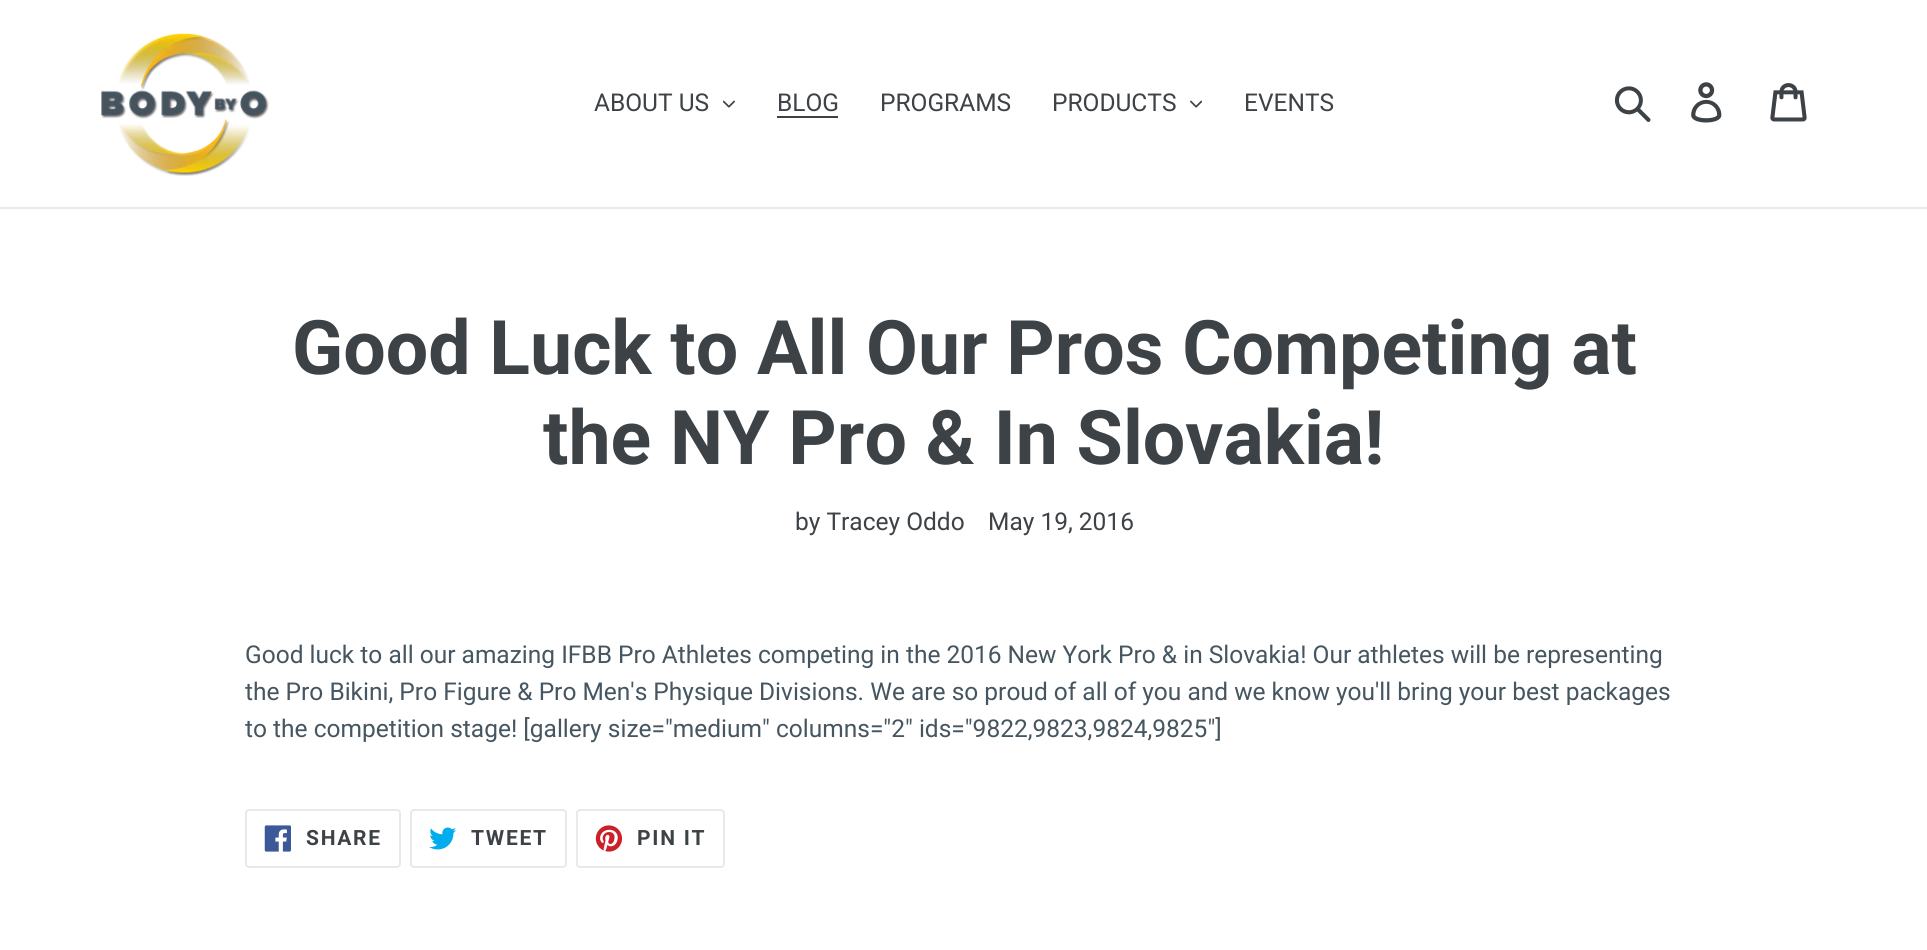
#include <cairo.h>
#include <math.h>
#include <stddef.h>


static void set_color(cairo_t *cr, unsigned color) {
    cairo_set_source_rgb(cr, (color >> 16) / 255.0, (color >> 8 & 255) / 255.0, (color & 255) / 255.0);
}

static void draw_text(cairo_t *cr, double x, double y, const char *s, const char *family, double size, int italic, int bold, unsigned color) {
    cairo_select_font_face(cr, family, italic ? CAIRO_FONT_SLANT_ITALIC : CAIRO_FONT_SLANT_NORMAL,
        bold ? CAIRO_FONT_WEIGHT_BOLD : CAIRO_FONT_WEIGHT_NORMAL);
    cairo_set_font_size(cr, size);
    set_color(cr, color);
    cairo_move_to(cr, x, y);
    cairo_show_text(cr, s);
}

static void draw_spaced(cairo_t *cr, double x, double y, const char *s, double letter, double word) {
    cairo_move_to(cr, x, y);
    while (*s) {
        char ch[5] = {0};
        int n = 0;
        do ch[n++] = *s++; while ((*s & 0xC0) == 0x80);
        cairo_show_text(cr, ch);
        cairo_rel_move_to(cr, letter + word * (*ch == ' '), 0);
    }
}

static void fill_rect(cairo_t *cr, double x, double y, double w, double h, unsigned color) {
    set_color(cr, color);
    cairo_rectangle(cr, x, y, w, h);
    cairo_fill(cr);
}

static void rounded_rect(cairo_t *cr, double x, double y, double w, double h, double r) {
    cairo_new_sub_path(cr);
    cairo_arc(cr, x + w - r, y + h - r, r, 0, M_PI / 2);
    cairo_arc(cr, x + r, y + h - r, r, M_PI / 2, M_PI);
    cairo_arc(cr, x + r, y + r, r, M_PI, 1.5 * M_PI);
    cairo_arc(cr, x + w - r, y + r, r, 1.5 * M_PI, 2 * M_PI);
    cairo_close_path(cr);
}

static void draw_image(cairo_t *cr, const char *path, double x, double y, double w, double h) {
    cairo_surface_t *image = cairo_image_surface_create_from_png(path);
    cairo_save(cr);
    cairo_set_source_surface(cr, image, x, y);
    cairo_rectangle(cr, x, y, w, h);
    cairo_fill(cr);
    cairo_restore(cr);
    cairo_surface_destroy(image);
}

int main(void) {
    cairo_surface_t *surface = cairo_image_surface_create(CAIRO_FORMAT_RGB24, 1927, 950);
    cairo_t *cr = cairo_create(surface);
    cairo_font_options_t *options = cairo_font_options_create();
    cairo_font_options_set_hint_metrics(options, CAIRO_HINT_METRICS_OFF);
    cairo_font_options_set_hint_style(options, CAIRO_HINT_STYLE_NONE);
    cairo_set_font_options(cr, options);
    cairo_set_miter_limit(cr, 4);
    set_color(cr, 0xFFFFFF);
    cairo_paint(cr);
    fill_rect(cr, 0, 207, 1927, 2, 0xE8E9EB);
    draw_image(cr, "assets/img1.png", 101, 33, 168, 143);
    draw_text(cr, 594, 111, "ABOUT US", "Roboto", 24.5, 0, 0, 0x3D4246);
    draw_image(cr, "assets/img2.png", 723, 100, 12, 8);
    draw_text(cr, 777, 111, "BLOG", "Roboto", 24.5, 0, 0, 0x3D4246);
    fill_rect(cr, 777, 116, 61, 2, 0x3D4246);
    draw_text(cr, 880, 111, "PROGRAMS", "Roboto", 24.5, 0, 0, 0x3D4246);
    draw_text(cr, 1052, 111, "PRODUCTS", "Roboto", 24.5, 0, 0, 0x3D4246);
    draw_image(cr, "assets/img3.png", 1190, 100, 12, 8);
    draw_text(cr, 1244, 111, "EVENTS", "Roboto", 24.5, 0, 0, 0x3D4246);
    draw_image(cr, "assets/img4.png", 1614, 86, 37, 36);
    draw_image(cr, "assets/img5.png", 1691, 82, 31, 41);
    draw_image(cr, "assets/img6.png", 1770, 83, 37, 39);
    draw_text(cr, 292, 374, "Good Luck to All Our Pros Competing at", "Roboto", 75.25, 0, 1, 0x3D4246);
    draw_text(cr, 543, 464, "the NY Pro & In Slovakia!", "Roboto", 75.25, 0, 1, 0x3D4246);
    draw_text(cr, 795, 530, "by Tracey Oddo", "Roboto", 24.5, 0, 0, 0x3D4246);
    draw_text(cr, 988, 530, "May 19, 2016", "Roboto", 24.5, 0, 0, 0x3D4246);
    draw_text(cr, 245, 663, "Good luck to all our amazing IFBB Pro Athletes competing in the 2016 New York Pro & in Slovakia! Our athletes will be representing", "Roboto", 24.5, 0, 0, 0x465660);
    draw_text(cr, 245, 700, "the Pro Bikini, Pro Figure & Pro Men's Physique Divisions. We are so proud of all of you and we know you'll bring your best packages", "Roboto", 24.5, 0, 0, 0x465660);
    draw_text(cr, 245, 737, "to the competition stage! [gallery size=\"medium\" columns=\"2\" ids=\"9822,9823,9824,9825\"]", "Roboto", 24.5, 0, 0, 0x465660);
    rounded_rect(cr, 246, 810, 154, 57, 3);
    set_color(cr, 0xE8E9EB);
    cairo_stroke(cr);
    draw_image(cr, "assets/img7.png", 264, 825, 27, 27);
    cairo_select_font_face(cr, "Roboto", CAIRO_FONT_SLANT_NORMAL, CAIRO_FONT_WEIGHT_BOLD);
    cairo_set_font_size(cr, 21);
    set_color(cr, 0x3D4246);
    draw_spaced(cr, 306, 845, "SHARE", 1.75, 0);
    rounded_rect(cr, 411, 810, 155, 57, 3);
    set_color(cr, 0xE8E9EB);
    cairo_stroke(cr);
    draw_image(cr, "assets/img8.png", 429, 827, 27, 23);
    set_color(cr, 0x3D4246);
    draw_spaced(cr, 471, 845, "TWEET", 1.75, 0);
    rounded_rect(cr, 577, 810, 147, 57, 3);
    set_color(cr, 0xE8E9EB);
    cairo_stroke(cr);
    draw_image(cr, "assets/img9.png", 595, 825, 28, 27);
    set_color(cr, 0x3D4246);
    draw_spaced(cr, 637, 845, "PIN IT", 1.75, 0);
    cairo_surface_write_to_png(surface, "output.png");
    cairo_font_options_destroy(options);
    cairo_destroy(cr);
    cairo_surface_destroy(surface);
    return 0;
}
